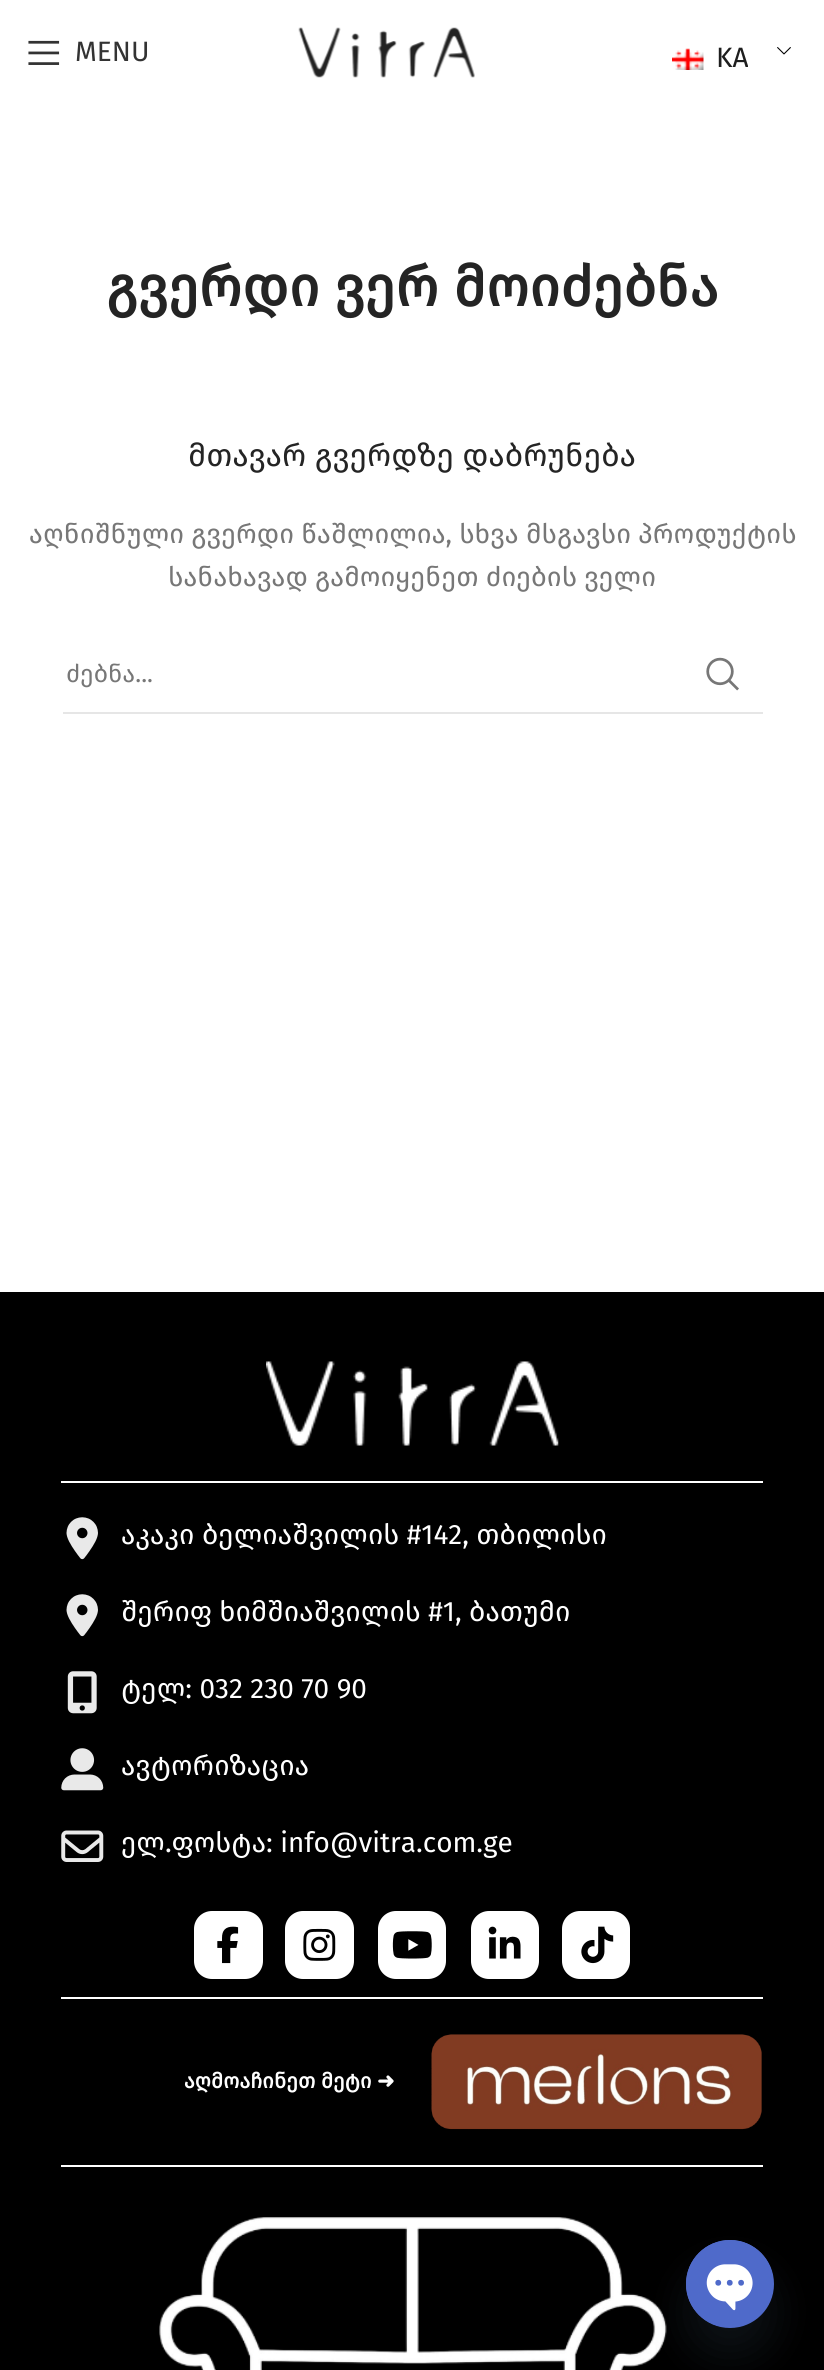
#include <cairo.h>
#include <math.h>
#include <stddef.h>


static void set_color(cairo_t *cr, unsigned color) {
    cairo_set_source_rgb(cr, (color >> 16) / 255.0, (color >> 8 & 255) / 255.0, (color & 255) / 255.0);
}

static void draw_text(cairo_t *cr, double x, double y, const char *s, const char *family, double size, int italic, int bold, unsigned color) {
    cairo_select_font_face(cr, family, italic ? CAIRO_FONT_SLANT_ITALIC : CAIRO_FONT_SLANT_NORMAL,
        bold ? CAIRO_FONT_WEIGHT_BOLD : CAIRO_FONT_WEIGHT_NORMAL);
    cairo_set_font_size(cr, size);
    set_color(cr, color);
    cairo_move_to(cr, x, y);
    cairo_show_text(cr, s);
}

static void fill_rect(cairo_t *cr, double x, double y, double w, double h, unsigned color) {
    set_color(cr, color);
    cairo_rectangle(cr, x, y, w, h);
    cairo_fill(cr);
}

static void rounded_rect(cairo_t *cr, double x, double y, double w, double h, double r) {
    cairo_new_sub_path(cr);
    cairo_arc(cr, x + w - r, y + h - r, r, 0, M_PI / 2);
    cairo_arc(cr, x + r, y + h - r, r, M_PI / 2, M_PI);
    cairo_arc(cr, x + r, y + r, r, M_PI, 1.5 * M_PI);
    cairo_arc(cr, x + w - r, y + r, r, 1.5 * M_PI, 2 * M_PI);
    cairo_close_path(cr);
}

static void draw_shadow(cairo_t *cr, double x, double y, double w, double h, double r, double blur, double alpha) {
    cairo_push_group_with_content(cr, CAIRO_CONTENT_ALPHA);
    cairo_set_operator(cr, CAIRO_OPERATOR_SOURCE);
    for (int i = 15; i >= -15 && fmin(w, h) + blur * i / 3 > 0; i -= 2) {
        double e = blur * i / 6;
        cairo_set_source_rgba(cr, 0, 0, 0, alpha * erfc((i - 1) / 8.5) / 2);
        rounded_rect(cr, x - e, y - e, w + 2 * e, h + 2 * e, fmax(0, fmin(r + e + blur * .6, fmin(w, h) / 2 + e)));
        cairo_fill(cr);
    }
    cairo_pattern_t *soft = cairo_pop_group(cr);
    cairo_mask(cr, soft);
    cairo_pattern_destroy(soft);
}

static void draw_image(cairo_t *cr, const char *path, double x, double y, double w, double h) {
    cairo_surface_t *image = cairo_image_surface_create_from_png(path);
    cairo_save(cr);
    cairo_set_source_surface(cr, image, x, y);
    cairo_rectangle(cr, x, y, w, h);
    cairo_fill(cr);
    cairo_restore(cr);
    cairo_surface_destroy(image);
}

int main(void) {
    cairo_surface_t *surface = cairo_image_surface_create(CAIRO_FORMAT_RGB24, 824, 2370);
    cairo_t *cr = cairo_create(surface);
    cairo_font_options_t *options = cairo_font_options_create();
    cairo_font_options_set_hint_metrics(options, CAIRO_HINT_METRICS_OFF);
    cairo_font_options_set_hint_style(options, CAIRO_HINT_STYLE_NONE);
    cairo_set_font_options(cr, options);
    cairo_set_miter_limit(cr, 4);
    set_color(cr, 0xFFFFFF);
    cairo_paint(cr);
    draw_image(cr, "assets/img1.png", 28, 40, 32, 25);
    draw_text(cr, 75, 61, "MENU", "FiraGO", 28, 0, 0, 0x333333);
    draw_image(cr, "assets/img2.png", 298, 27, 177, 51);
    draw_image(cr, "assets/img3.png", 777, 47, 14, 8);
    draw_image(cr, "assets/img4.png", 672, 48, 32, 22);
    draw_text(cr, 716, 67, "KA", "FiraGO", 28, 0, 0, 0x1E1E1E);
    draw_text(cr, 106, 306, "გვერდი ვერ მოიძებნა", "FiraGO", 56, 0, 1, 0x242424);
    draw_text(cr, 188, 466, "მთავარ გვერდზე დაბრუნება", "FiraGO", 31.5, 0, 0, 0x242424);
    draw_text(cr, 29, 543, "აღნიშნული გვერდი წაშლილია, სხვა მსგავსი პროდუქტის", "FiraGO", 26.95, 0, 0, 0x777777);
    draw_text(cr, 168, 586, "სანახავად გამოიყენეთ ძიების ველი", "FiraGO", 26.95, 0, 0, 0x777777);
    fill_rect(cr, 63, 712, 700, 2, 0xE6E6E6);
    draw_text(cr, 66, 682, "ძებნა...", "FiraGO", 24.5, 0, 0, 0x777777);
    draw_image(cr, "assets/img5.png", 706, 657, 33, 34);
    fill_rect(cr, 0, 1292, 824, 1078, 0x000000);
    fill_rect(cr, 61, 1481, 702, 2, 0xFFFFFF);
    draw_image(cr, "assets/img6.png", 266, 1361, 293, 85);
    draw_image(cr, "assets/img7.png", 66, 1517, 32, 43);
    draw_text(cr, 121, 1544, "აკაკი ბელიაშვილის #142, თბილისი", "FiraGO", 28, 0, 0, 0xFFFFFF);
    draw_image(cr, "assets/img7.png", 66, 1594, 32, 43);
    draw_text(cr, 121, 1621, "შერიფ ხიმშიაშვილის #1, ბათუმი", "FiraGO", 28, 0, 0, 0xFFFFFF);
    draw_image(cr, "assets/img8.png", 67, 1671, 30, 43);
    draw_text(cr, 121, 1698, "ტელ: 032 230 70 90", "FiraGO", 28, 0, 0, 0xFFFFFF);
    draw_image(cr, "assets/img9.png", 61, 1748, 43, 43);
    draw_text(cr, 121, 1775, "ავტორიზაცია", "FiraGO", 28, 0, 0, 0xFFFFFF);
    draw_image(cr, "assets/img10.png", 61, 1830, 43, 32);
    draw_text(cr, 121, 1852, "ელ.ფოსტა: info@vitra.com.ge", "FiraGO", 28, 0, 0, 0xFFFFFF);
    fill_rect(cr, 61, 1997, 702, 2, 0xFFFFFF);
    rounded_rect(cr, 194, 1911, 69, 68, 18);
    cairo_fill(cr);
    draw_image(cr, "assets/img11.png", 217, 1926, 22, 38);
    rounded_rect(cr, 285, 1911, 69, 68, 18);
    cairo_fill(cr);
    draw_image(cr, "assets/img12.png", 303, 1928, 33, 33);
    rounded_rect(cr, 378, 1911, 68, 68, 18);
    cairo_fill(cr);
    draw_image(cr, "assets/img13.png", 392, 1931, 40, 28);
    rounded_rect(cr, 471, 1911, 68, 68, 18);
    cairo_fill(cr);
    draw_image(cr, "assets/img14.png", 488, 1926, 33, 33);
    rounded_rect(cr, 562, 1911, 68, 68, 18);
    cairo_fill(cr);
    draw_image(cr, "assets/img15.png", 581, 1926, 33, 38);
    draw_text(cr, 184, 2088, "აღმოაჩინეთ მეტი", "FiraGO", 21, 0, 1, 0xFFFFFF);
    draw_text(cr, 377, 2088, "➜", "DejaVu Sans", 21, 0, 1, 0xFFFFFF);
    draw_image(cr, "assets/img16.png", 431, 2034, 331, 96);
    fill_rect(cr, 61, 2165, 702, 2, 0xFFFFFF);
    draw_image(cr, "assets/img17.png", 159, 2217, 508, 153);
    set_color(cr, 0x49687E);
    draw_shadow(cr, 686, 2268, 88, 88, 44, 21, 0.16);
    set_color(cr, 0x4F6ACA);
    cairo_arc(cr, 730, 2284, 44, 0, 2 * M_PI);
    cairo_fill(cr);
    draw_image(cr, "assets/img18.png", 686, 2240, 87, 87);
    cairo_surface_write_to_png(surface, "output.png");
    cairo_font_options_destroy(options);
    cairo_destroy(cr);
    cairo_surface_destroy(surface);
    return 0;
}
